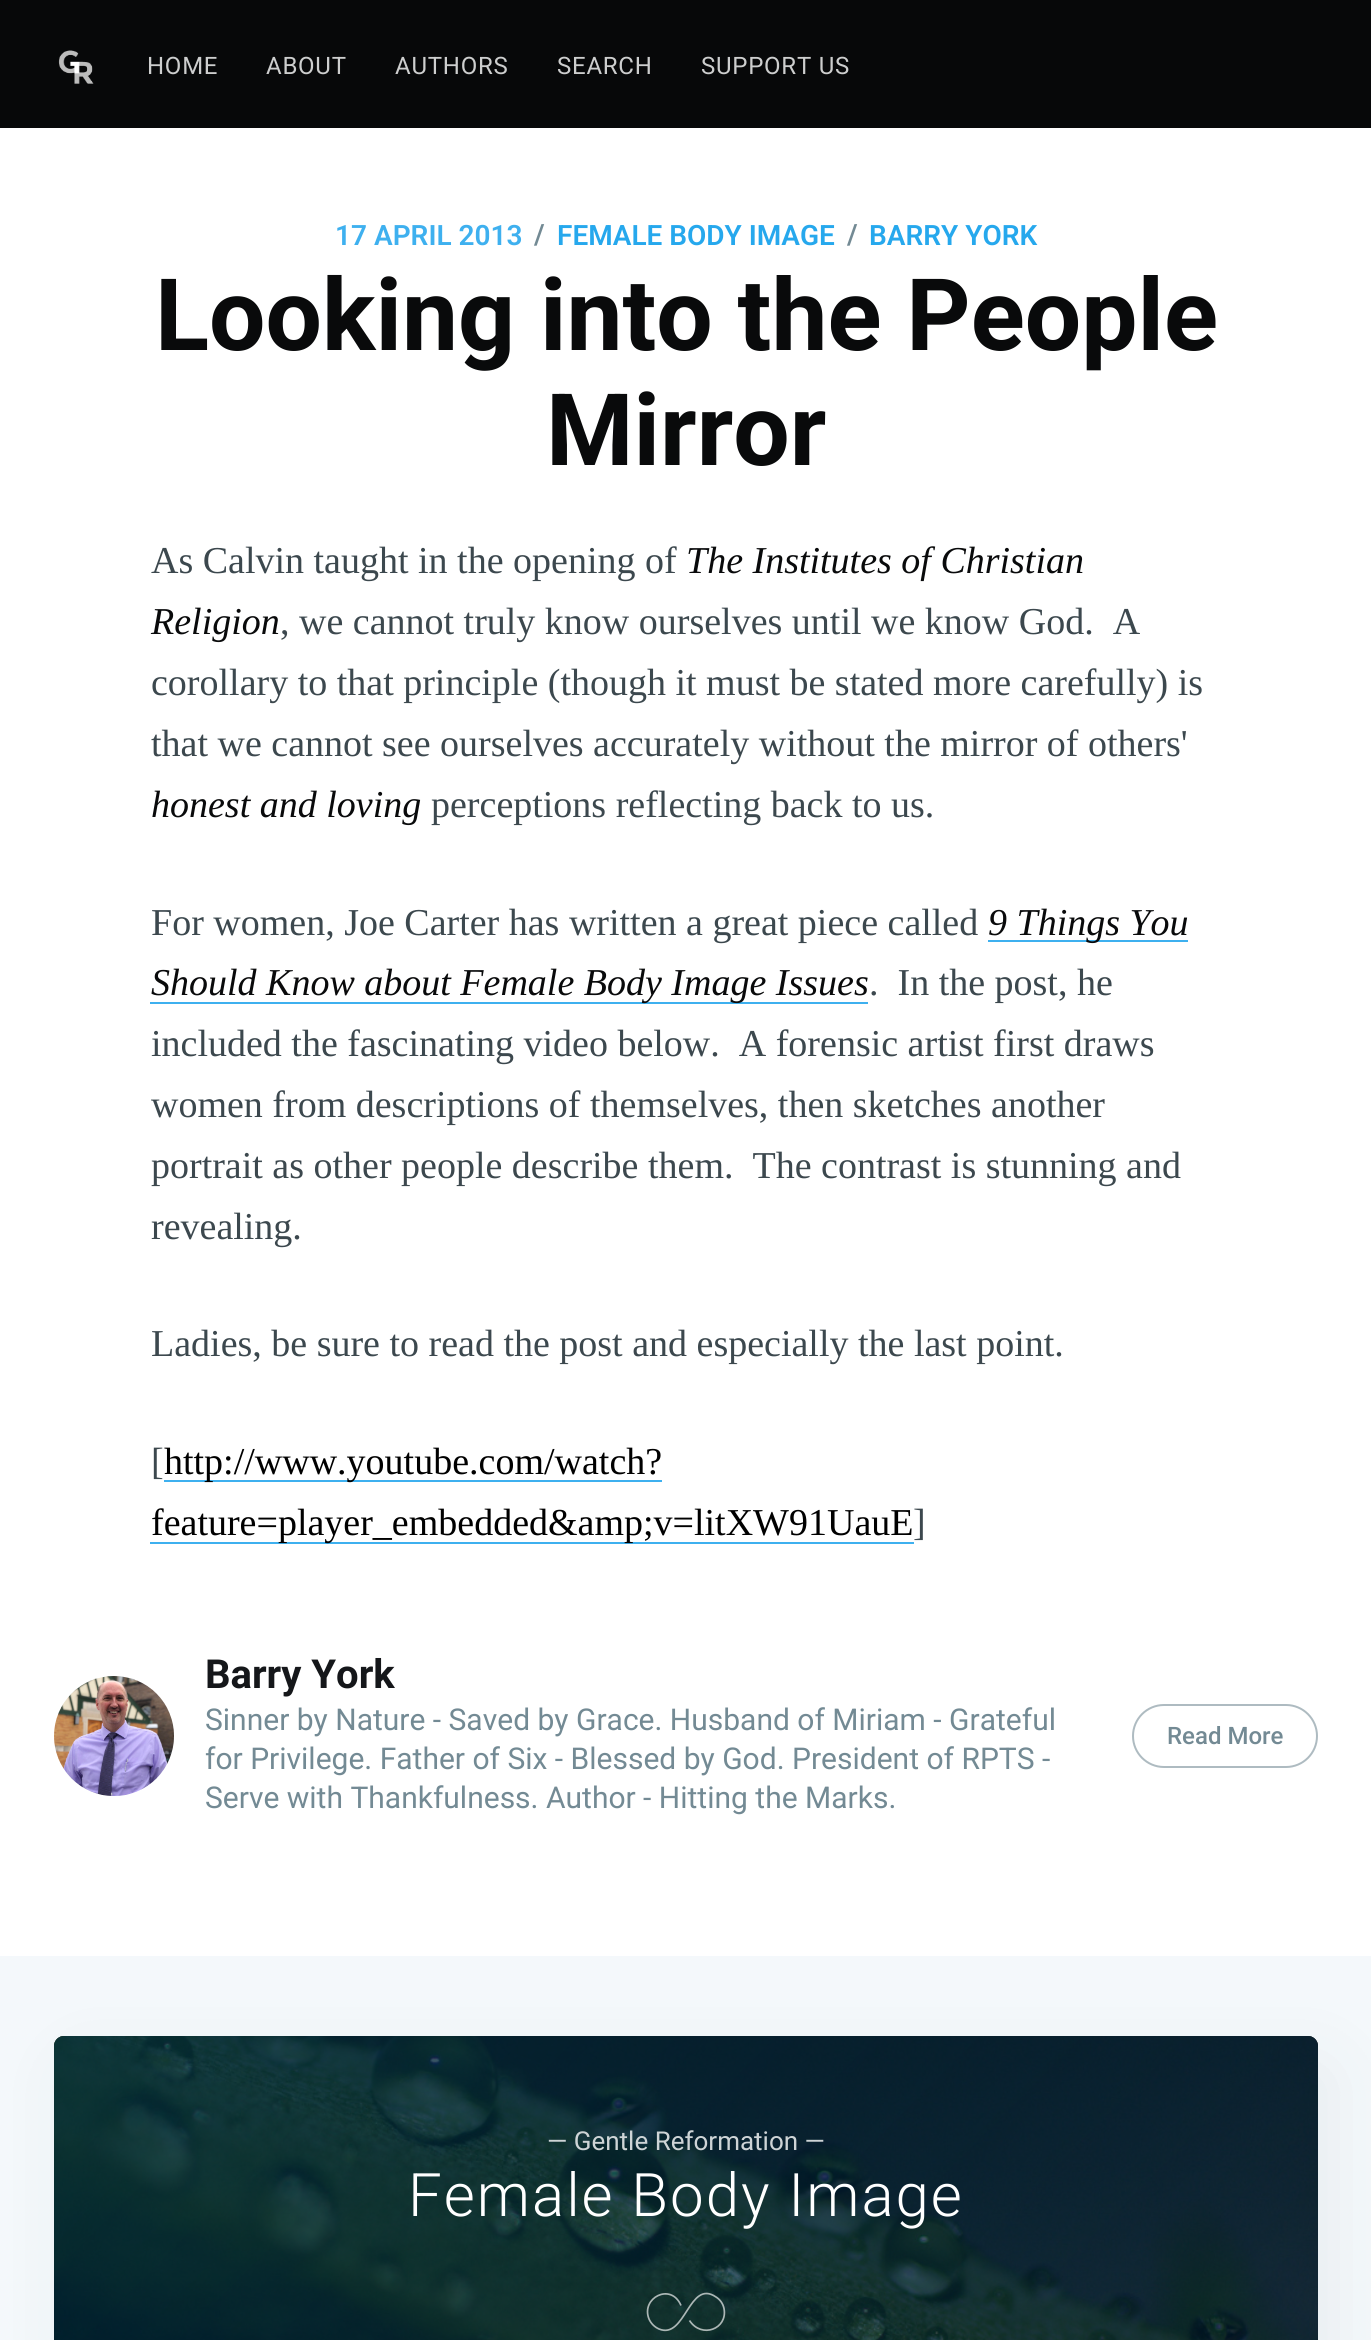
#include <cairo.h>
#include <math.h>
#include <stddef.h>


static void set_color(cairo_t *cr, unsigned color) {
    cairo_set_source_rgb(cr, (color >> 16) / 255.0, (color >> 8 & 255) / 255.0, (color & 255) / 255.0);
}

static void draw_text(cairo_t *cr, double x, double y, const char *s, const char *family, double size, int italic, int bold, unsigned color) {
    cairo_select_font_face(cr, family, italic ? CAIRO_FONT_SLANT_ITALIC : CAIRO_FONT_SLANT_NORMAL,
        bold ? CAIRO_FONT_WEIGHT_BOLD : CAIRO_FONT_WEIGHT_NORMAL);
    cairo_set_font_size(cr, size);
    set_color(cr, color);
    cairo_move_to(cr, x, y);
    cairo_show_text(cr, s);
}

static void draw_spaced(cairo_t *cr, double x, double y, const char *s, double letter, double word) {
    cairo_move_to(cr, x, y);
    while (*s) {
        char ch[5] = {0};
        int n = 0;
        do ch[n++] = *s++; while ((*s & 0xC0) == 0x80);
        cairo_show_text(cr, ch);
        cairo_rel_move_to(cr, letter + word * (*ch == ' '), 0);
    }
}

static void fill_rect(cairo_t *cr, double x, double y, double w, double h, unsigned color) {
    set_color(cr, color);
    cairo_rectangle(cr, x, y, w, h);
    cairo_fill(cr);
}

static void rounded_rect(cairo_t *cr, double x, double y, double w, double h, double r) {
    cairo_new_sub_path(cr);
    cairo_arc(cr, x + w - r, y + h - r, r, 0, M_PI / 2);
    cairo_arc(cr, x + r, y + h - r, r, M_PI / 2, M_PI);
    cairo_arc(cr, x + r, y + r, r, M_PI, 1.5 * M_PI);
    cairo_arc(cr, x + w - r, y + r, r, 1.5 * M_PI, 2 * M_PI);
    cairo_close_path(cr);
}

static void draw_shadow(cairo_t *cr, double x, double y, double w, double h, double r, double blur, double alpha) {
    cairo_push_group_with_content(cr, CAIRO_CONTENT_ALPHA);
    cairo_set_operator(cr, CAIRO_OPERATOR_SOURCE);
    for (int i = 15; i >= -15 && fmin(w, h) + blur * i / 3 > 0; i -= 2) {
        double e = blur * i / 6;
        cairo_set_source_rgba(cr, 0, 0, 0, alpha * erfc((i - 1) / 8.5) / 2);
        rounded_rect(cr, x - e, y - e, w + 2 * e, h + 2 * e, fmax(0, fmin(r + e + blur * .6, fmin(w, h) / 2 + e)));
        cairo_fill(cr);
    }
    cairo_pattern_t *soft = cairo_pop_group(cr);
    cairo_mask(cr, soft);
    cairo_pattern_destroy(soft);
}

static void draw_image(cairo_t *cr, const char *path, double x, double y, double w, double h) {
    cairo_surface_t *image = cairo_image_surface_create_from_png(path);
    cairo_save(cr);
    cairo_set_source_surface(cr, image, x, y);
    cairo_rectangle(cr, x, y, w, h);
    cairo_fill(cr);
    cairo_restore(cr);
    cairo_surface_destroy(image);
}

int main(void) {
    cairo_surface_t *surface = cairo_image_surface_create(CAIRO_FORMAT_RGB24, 1371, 2340);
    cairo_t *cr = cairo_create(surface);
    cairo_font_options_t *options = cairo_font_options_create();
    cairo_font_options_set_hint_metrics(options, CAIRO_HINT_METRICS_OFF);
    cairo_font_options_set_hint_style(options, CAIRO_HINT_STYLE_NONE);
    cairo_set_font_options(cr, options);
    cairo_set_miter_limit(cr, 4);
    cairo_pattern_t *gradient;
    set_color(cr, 0xF4F8FB);
    cairo_paint(cr);
    fill_rect(cr, 0, 0, 1371, 128, 0x070809);
    draw_image(cr, "assets/img1.png", 58, 50, 36, 34);
    cairo_select_font_face(cr, "Roboto", CAIRO_FONT_SLANT_NORMAL, CAIRO_FONT_WEIGHT_NORMAL);
    cairo_set_font_size(cr, 24);
    set_color(cr, 0xCDCECE);
    draw_spaced(cr, 147, 74, "HOME", 0.75, 0);
    draw_spaced(cr, 266, 74, "ABOUT", 0.75, 0);
    draw_spaced(cr, 395, 74, "AUTHORS", 0.75, 0);
    draw_spaced(cr, 557, 74, "SEARCH", 0.75, 0);
    draw_spaced(cr, 701, 74, "SUPPORT US", 0.75, 0);
    set_color(cr, 0x272C31);
    draw_shadow(cr, 70, 2064, 1264, 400, 10, 38, 0.06);
    fill_rect(cr, 0, 128, 1371, 1828, 0xFFFFFF);
    draw_text(cr, 335, 245, "17 APRIL 2013", "Roboto SemiBold", 28, 0, 0, 0x3EB0EF);
    draw_text(cr, 534, 244, "/", "Roboto SemiBold", 28, 0, 0, 0x738A94);
    draw_text(cr, 557, 245, "FEMALE BODY IMAGE", "Roboto SemiBold", 28, 0, 0, 0x26A8ED);
    draw_text(cr, 847, 244, "/", "Roboto SemiBold", 28, 0, 0, 0x738A94);
    draw_text(cr, 869, 245, "BARRY YORK", "Roboto SemiBold", 28, 0, 0, 0x26A8ED);
    draw_text(cr, 155, 350, "Looking into the People", "Roboto", 100, 0, 1, 0x090A0B);
    draw_text(cr, 546, 465, "Mirror", "Roboto", 100, 0, 1, 0x090A0B);
    draw_text(cr, 151, 573, "As Calvin taught in the opening of", "Liberation Serif", 38, 0, 0, 0x3C484E);
    draw_text(cr, 686, 573, "The Institutes of Christian", "Liberation Serif", 38, 1, 0, 0x090A0B);
    draw_text(cr, 151, 634, "Religion", "Liberation Serif", 38, 1, 0, 0x090A0B);
    draw_text(cr, 280, 634, ", we cannot truly know ourselves until we know God.  A", "Liberation Serif", 38, 0, 0, 0x3C484E);
    draw_text(cr, 151, 695, "corollary to that principle (though it must be stated more carefully) is", "Liberation Serif", 38, 0, 0, 0x3C484E);
    draw_text(cr, 151, 756, "that we cannot see ourselves accurately without the mirror of others'", "Liberation Serif", 38, 0, 0, 0x3C484E);
    draw_text(cr, 151, 817, "honest and loving", "Liberation Serif", 38, 1, 0, 0x090A0B);
    draw_text(cr, 431, 817, "perceptions reflecting back to us.", "Liberation Serif", 38, 0, 0, 0x3C484E);
    draw_text(cr, 151, 935, "For women, Joe Carter has written a great piece called", "Liberation Serif", 38, 0, 0, 0x3C484E);
    fill_rect(cr, 988, 940, 200, 2, 0x3EB0EF);
    draw_text(cr, 988, 935, "9 Things You", "Liberation Serif", 38, 1, 0, 0x090A0B);
    fill_rect(cr, 150, 1002, 718, 2, 0x3EB0EF);
    draw_text(cr, 151, 995, "Should Know about Female Body Image Issues", "Liberation Serif", 38, 1, 0, 0x090A0B);
    draw_text(cr, 869, 995, ".  In the post, he", "Liberation Serif", 38, 0, 0, 0x3C484E);
    draw_text(cr, 151, 1056, "included the fascinating video below.  A forensic artist first draws", "Liberation Serif", 38, 0, 0, 0x3C484E);
    draw_text(cr, 151, 1117, "women from descriptions of themselves, then sketches another", "Liberation Serif", 38, 0, 0, 0x3C484E);
    draw_text(cr, 151, 1178, "portrait as other people describe them.  The contrast is stunning and", "Liberation Serif", 38, 0, 0, 0x3C484E);
    draw_text(cr, 151, 1239, "revealing.", "Liberation Serif", 38, 0, 0, 0x3C484E);
    draw_text(cr, 151, 1356, "Ladies, be sure to read the post and especially the last point.", "Liberation Serif", 38, 0, 0, 0x3C484E);
    draw_text(cr, 151, 1474, "[", "Liberation Serif", 38, 0, 0, 0x3C484E);
    fill_rect(cr, 164, 1480, 498, 2, 0x3EB0EF);
    draw_text(cr, 164, 1474, "http://www.youtube.com/watch?", "Liberation Serif", 38, 0, 0, 0x000000);
    fill_rect(cr, 150, 1542, 764, 2, 0x3EB0EF);
    draw_text(cr, 151, 1535, "feature=player_embedded&amp;v=litXW91UauE", "Liberation Serif", 38, 0, 0, 0x000000);
    draw_text(cr, 913, 1535, "]", "Liberation Serif", 38, 0, 0, 0x3C484E);
    draw_image(cr, "assets/img2.png", 54, 1676, 120, 120);
    draw_text(cr, 205, 1688, "Barry York", "Roboto", 40, 0, 1, 0x15171A);
    draw_text(cr, 205, 1730, "Sinner by Nature - Saved by Grace. Husband of Miriam - Grateful", "Roboto", 30, 0, 0, 0x738A94);
    draw_text(cr, 205, 1769, "for Privilege. Father of Six - Blessed by God. President of RPTS -", "Roboto", 30, 0, 0, 0x738A94);
    draw_text(cr, 205, 1808, "Serve with Thankfulness. Author - Hitting the Marks.", "Roboto", 30, 0, 0, 0x738A94);
    rounded_rect(cr, 1133, 1705, 184, 62, 31);
    set_color(cr, 0xAEBBC1);
    cairo_stroke(cr);
    draw_text(cr, 1167, 1744, "Read More", "Roboto Medium", 24, 0, 0, 0x738A94);
    set_color(cr, 0x15171A);
    rounded_rect(cr, 54, 2036, 1264, 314, 10);
    cairo_fill(cr);
    draw_image(cr, "assets/img3.png", 54, 2036, 1264, 304);
    gradient = cairo_pattern_create_linear(222, 1868, 1150, 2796);
    cairo_pattern_add_color_stop_rgba(gradient, 0, 0, 0.157, 0.235, 0.8);
    cairo_pattern_add_color_stop_rgba(gradient, 1, 0, 0.078, 0.157, 0.7);
    cairo_set_source(cr, gradient);
    cairo_pattern_destroy(gradient);
    rounded_rect(cr, 54, 2036, 1264, 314, 10);
    cairo_fill(cr);
    draw_text(cr, 547, 2150, "— Gentle Reformation —", "Roboto", 26, 0, 0, 0xCED4D6);
    cairo_select_font_face(cr, "Roboto Light", CAIRO_FONT_SLANT_NORMAL, CAIRO_FONT_WEIGHT_NORMAL);
    cairo_set_font_size(cr, 60);
    set_color(cr, 0xFFFFFF);
    draw_spaced(cr, 408, 2216, "Female Body Image", 2, 0);
    cairo_new_path(cr);
    cairo_move_to(cr, 689.5, 2320.5);
    cairo_curve_to(cr, 701.5, 2339, 728, 2329, 724, 2308.5);
    cairo_curve_to(cr, 723, 2303.5, 720, 2299.5, 716, 2297);
    cairo_curve_to(cr, 689, 2278.5, 685.5, 2340, 659, 2329);
    cairo_curve_to(cr, 654.5, 2327, 651, 2323.5, 649, 2319);
    cairo_curve_to(cr, 640.5, 2298, 671, 2282, 681, 2305.5);
    cairo_set_source_rgba(cr, 1, 1, 1, 0.65);
    cairo_set_line_width(cr, 1.7);
    cairo_stroke(cr);
    cairo_surface_write_to_png(surface, "output.png");
    cairo_font_options_destroy(options);
    cairo_destroy(cr);
    cairo_surface_destroy(surface);
    return 0;
}
